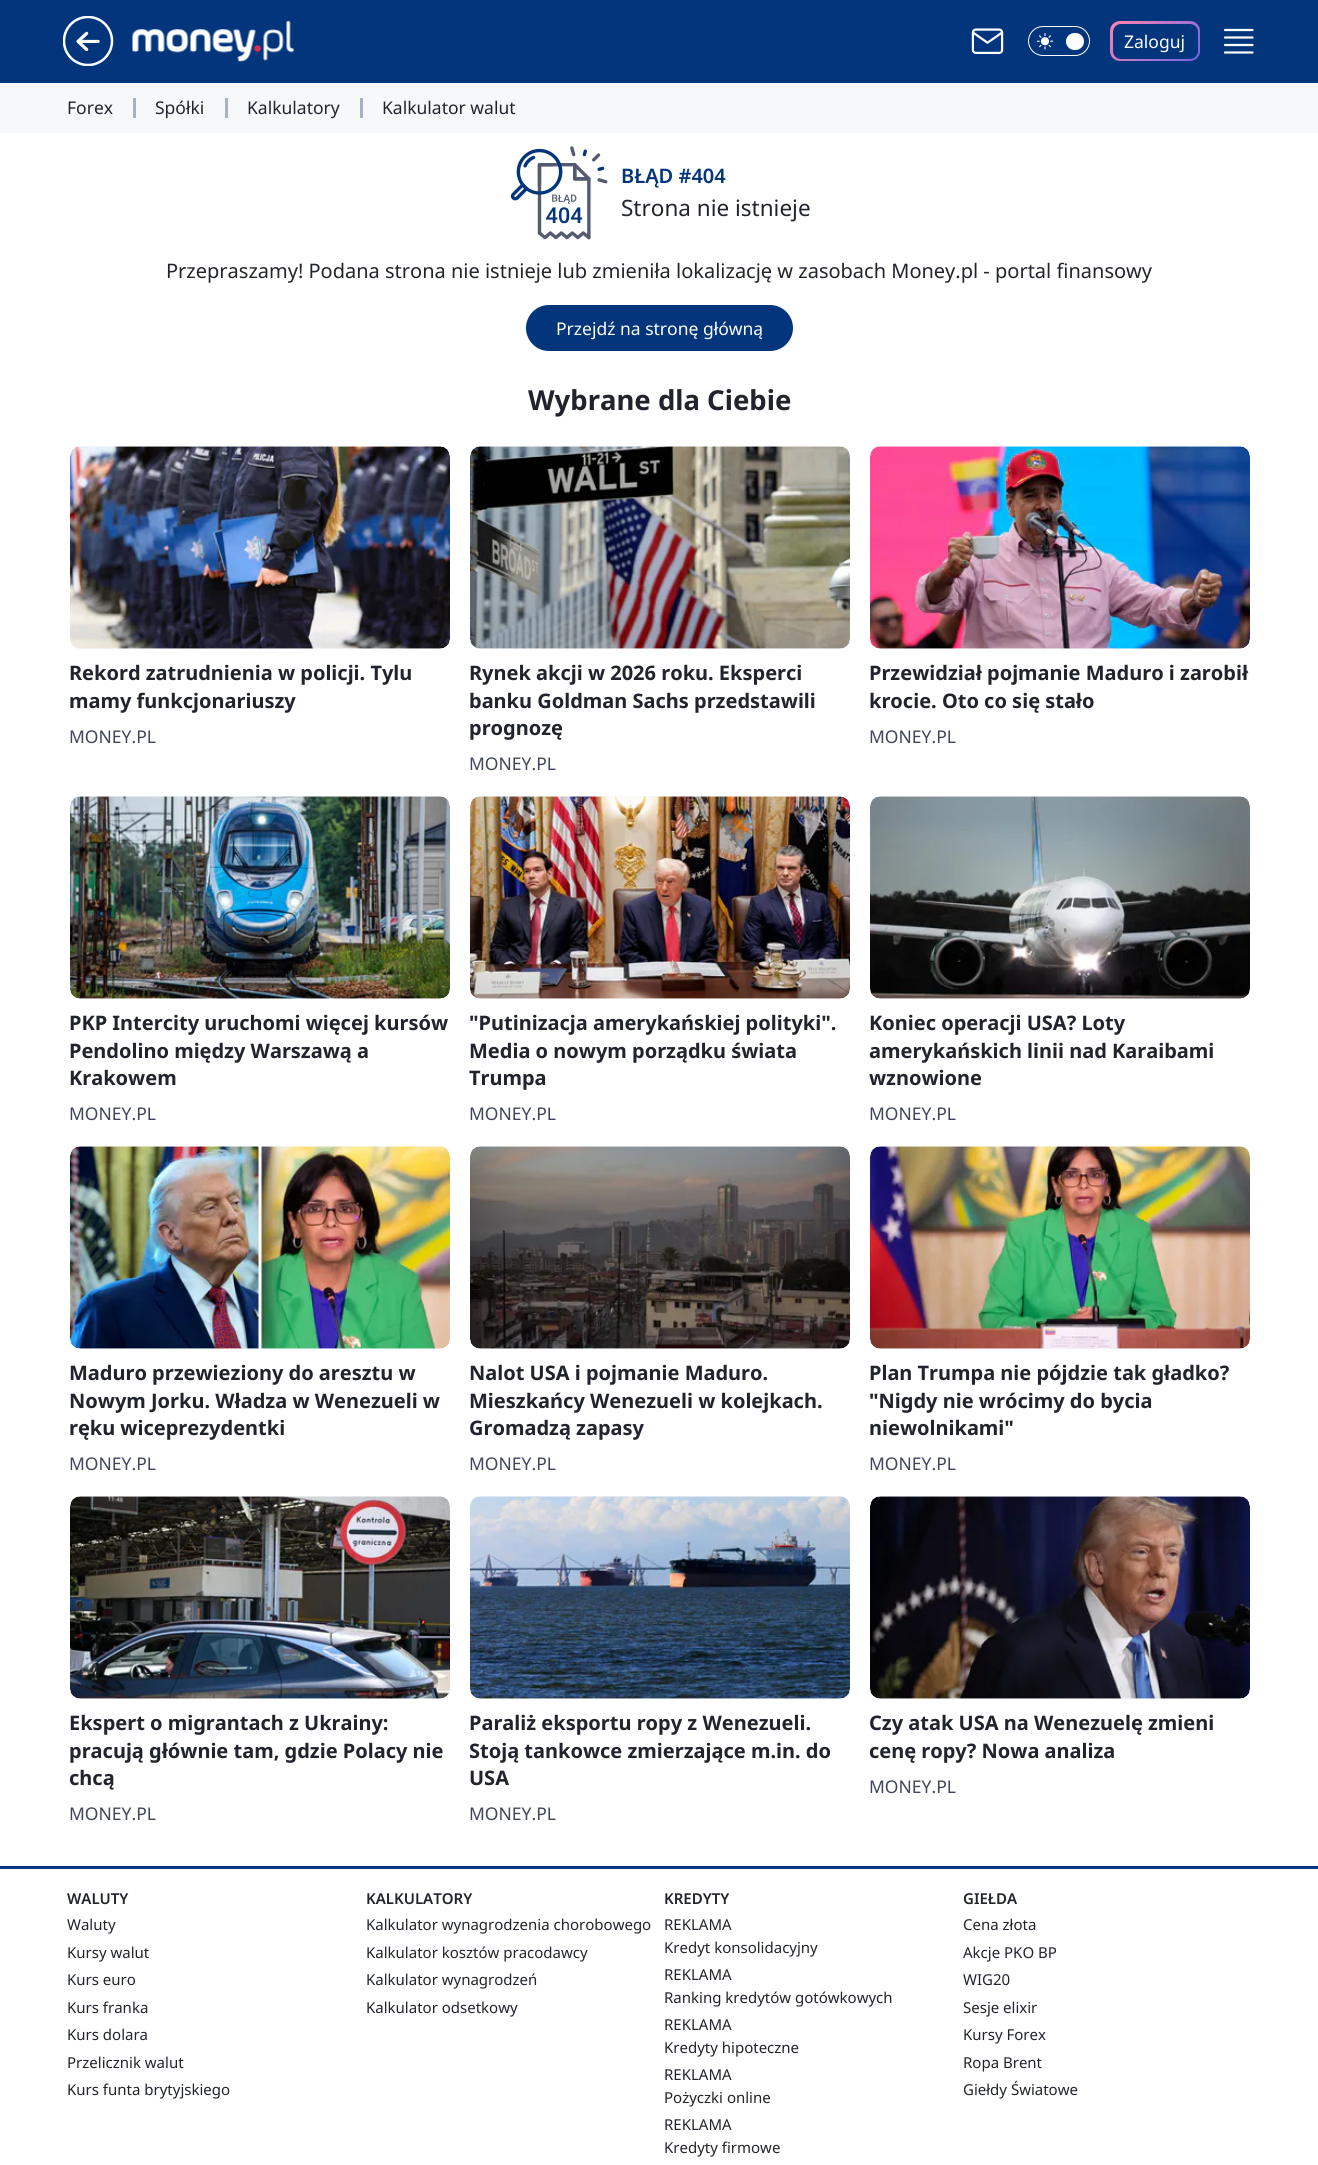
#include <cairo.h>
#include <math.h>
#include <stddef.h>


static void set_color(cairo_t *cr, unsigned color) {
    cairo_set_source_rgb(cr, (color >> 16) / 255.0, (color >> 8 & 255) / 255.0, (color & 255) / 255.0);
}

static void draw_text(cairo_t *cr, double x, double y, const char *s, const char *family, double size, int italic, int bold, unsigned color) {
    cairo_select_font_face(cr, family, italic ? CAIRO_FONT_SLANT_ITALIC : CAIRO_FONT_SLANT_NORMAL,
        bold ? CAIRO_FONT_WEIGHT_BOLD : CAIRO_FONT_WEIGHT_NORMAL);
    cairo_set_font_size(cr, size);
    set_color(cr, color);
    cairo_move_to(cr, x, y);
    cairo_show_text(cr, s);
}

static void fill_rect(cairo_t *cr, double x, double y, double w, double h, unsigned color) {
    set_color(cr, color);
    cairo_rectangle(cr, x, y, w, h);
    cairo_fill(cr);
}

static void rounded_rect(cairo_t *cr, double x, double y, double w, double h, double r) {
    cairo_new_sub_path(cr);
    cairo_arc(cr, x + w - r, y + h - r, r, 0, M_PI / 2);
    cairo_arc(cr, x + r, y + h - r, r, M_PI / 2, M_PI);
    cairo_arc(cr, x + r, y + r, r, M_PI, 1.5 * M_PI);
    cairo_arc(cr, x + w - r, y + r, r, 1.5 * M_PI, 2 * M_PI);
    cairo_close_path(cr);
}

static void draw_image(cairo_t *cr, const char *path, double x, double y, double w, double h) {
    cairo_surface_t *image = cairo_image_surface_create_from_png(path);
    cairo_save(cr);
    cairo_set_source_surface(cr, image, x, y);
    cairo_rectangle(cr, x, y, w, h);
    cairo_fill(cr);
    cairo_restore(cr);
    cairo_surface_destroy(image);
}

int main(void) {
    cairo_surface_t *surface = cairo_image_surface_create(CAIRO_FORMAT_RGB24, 1318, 2165);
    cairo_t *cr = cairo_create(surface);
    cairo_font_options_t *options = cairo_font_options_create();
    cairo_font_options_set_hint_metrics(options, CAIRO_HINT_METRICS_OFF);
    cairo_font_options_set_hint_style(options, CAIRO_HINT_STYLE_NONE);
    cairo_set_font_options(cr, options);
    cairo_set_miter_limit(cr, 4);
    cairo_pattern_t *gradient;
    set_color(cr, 0xFFFFFF);
    cairo_paint(cr);
    fill_rect(cr, 0, 0, 1318, 83, 0x03357D);
    draw_image(cr, "assets/img1.png", 63, 16, 51, 50);
    draw_image(cr, "assets/img2.png", 132, 21, 162, 41);
    draw_image(cr, "assets/img3.png", 971, 28, 33, 26);
    rounded_rect(cr, 1028.5, 26.5, 61, 29, 14.5);
    set_color(cr, 0xFFFFFF);
    cairo_set_line_width(cr, 1);
    cairo_stroke(cr);
    draw_image(cr, "assets/img4.png", 1036, 33, 18, 17);
    rounded_rect(cr, 1066, 33, 18, 17, 8.5);
    cairo_fill(cr);
    gradient = cairo_pattern_create_linear(1123, 9, 1188, 74);
    cairo_pattern_add_color_stop_rgba(gradient, 0, 1, 0.518, 0.69, 1);
    cairo_pattern_add_color_stop_rgba(gradient, 1, 0.431, 0.396, 0.898, 1);
    cairo_set_source(cr, gradient);
    cairo_pattern_destroy(gradient);
    rounded_rect(cr, 1110, 21, 90, 40, 10);
    cairo_fill(cr);
    set_color(cr, 0x03357D);
    rounded_rect(cr, 1113, 24, 85, 35, 8);
    cairo_fill(cr);
    draw_text(cr, 1124, 48, "Zaloguj", "Noto Sans", 17.5, 0, 0, 0xFFFFFF);
    cairo_new_path(cr);
    cairo_move_to(cr, 1225, 45);
    cairo_line_to(cr, 1252.5, 45);
    cairo_move_to(cr, 1225, 37.5);
    cairo_line_to(cr, 1252.5, 37.5);
    cairo_move_to(cr, 1225, 30);
    cairo_line_to(cr, 1252.5, 30);
    cairo_move_to(cr, 1225, 52.5);
    cairo_line_to(cr, 1252.5, 52.5);
    cairo_set_line_width(cr, 2.2);
    cairo_set_line_cap(cr, CAIRO_LINE_CAP_ROUND);
    cairo_set_line_join(cr, CAIRO_LINE_JOIN_ROUND);
    cairo_stroke(cr);
    fill_rect(cr, 0, 83, 1318, 50, 0xF7F8FA);
    draw_text(cr, 67, 114, "Forex", "Noto Sans", 17.5, 0, 0, 0x22242D);
    fill_rect(cr, 133, 98, 3, 20, 0xA8B2C7);
    draw_text(cr, 155, 114, "Spółki", "Noto Sans", 17.5, 0, 0, 0x22242D);
    fill_rect(cr, 225, 98, 3, 20, 0xA8B2C7);
    draw_text(cr, 247, 114, "Kalkulatory", "Noto Sans", 17.5, 0, 0, 0x22242D);
    fill_rect(cr, 360, 98, 3, 20, 0xA8B2C7);
    draw_text(cr, 382, 114, "Kalkulator walut", "Noto Sans", 17.5, 0, 0, 0x22242D);
    draw_image(cr, "assets/img5.png", 510, 146, 98, 94);
    draw_text(cr, 621, 183, "BŁĄD #404", "Noto Sans SemiBold", 20, 0, 0, 0x03357D);
    draw_text(cr, 621, 216, "Strona nie istnieje", "Noto Sans", 22.5, 0, 0, 0x22242D);
    draw_text(cr, 166, 278, "Przepraszamy! Podana strona nie istnieje lub zmieniła lokalizację w zasobach Money.pl - portal finansowy", "Noto Sans", 20, 0, 0, 0x22242D);
    set_color(cr, 0x03357D);
    rounded_rect(cr, 526, 305, 267, 46, 23);
    cairo_fill(cr);
    draw_text(cr, 556, 335, "Przejdź na stronę główną", "Noto Sans", 17.5, 0, 0, 0xFFFFFF);
    draw_text(cr, 528, 410, "Wybrane dla Ciebie", "Noto Sans", 27.5, 0, 1, 0x22242D);
    set_color(cr, 0xF7F8FA);
    rounded_rect(cr, 70, 446, 380, 203, 10);
    cairo_fill(cr);
    draw_image(cr, "assets/img6.png", 70, 446, 380, 203);
    draw_text(cr, 69, 680, "Rekord zatrudnienia w policji. Tylu", "Noto Sans", 20, 0, 1, 0x22242D);
    draw_text(cr, 69, 708, "mamy funkcjonariuszy", "Noto Sans", 20, 0, 1, 0x22242D);
    draw_text(cr, 69, 743, "MONEY.PL", "Noto Sans", 17.5, 0, 0, 0x41455A);
    set_color(cr, 0xF7F8FA);
    rounded_rect(cr, 470, 446, 380, 203, 10);
    cairo_fill(cr);
    draw_image(cr, "assets/img7.png", 470, 446, 380, 203);
    draw_text(cr, 469, 680, "Rynek akcji w 2026 roku. Eksperci", "Noto Sans", 20, 0, 1, 0x22242D);
    draw_text(cr, 469, 708, "banku Goldman Sachs przedstawili", "Noto Sans", 20, 0, 1, 0x22242D);
    draw_text(cr, 469, 735, "prognozę", "Noto Sans", 20, 0, 1, 0x22242D);
    draw_text(cr, 469, 770, "MONEY.PL", "Noto Sans", 17.5, 0, 0, 0x41455A);
    set_color(cr, 0xF7F8FA);
    rounded_rect(cr, 870, 446, 380, 203, 10);
    cairo_fill(cr);
    draw_image(cr, "assets/img8.png", 870, 446, 380, 203);
    draw_text(cr, 869, 680, "Przewidział pojmanie Maduro i zarobił", "Noto Sans", 20, 0, 1, 0x22242D);
    draw_text(cr, 869, 708, "krocie. Oto co się stało", "Noto Sans", 20, 0, 1, 0x22242D);
    draw_text(cr, 869, 743, "MONEY.PL", "Noto Sans", 17.5, 0, 0, 0x41455A);
    set_color(cr, 0xF7F8FA);
    rounded_rect(cr, 70, 796, 380, 203, 10);
    cairo_fill(cr);
    draw_image(cr, "assets/img9.png", 70, 796, 380, 203);
    draw_text(cr, 69, 1030, "PKP Intercity uruchomi więcej kursów", "Noto Sans", 20, 0, 1, 0x22242D);
    draw_text(cr, 69, 1058, "Pendolino między Warszawą a", "Noto Sans", 20, 0, 1, 0x22242D);
    draw_text(cr, 69, 1085, "Krakowem", "Noto Sans", 20, 0, 1, 0x22242D);
    draw_text(cr, 69, 1120, "MONEY.PL", "Noto Sans", 17.5, 0, 0, 0x41455A);
    set_color(cr, 0xF7F8FA);
    rounded_rect(cr, 470, 796, 380, 203, 10);
    cairo_fill(cr);
    draw_image(cr, "assets/img10.png", 470, 796, 380, 203);
    draw_text(cr, 469, 1030, "\"Putinizacja amerykańskiej polityki\".", "Noto Sans", 20, 0, 1, 0x22242D);
    draw_text(cr, 469, 1058, "Media o nowym porządku świata", "Noto Sans", 20, 0, 1, 0x22242D);
    draw_text(cr, 469, 1085, "Trumpa", "Noto Sans", 20, 0, 1, 0x22242D);
    draw_text(cr, 469, 1120, "MONEY.PL", "Noto Sans", 17.5, 0, 0, 0x41455A);
    set_color(cr, 0xF7F8FA);
    rounded_rect(cr, 870, 796, 380, 203, 10);
    cairo_fill(cr);
    draw_image(cr, "assets/img11.png", 870, 796, 380, 203);
    draw_text(cr, 869, 1030, "Koniec operacji USA? Loty", "Noto Sans", 20, 0, 1, 0x22242D);
    draw_text(cr, 869, 1058, "amerykańskich linii nad Karaibami", "Noto Sans", 20, 0, 1, 0x22242D);
    draw_text(cr, 869, 1085, "wznowione", "Noto Sans", 20, 0, 1, 0x22242D);
    draw_text(cr, 869, 1120, "MONEY.PL", "Noto Sans", 17.5, 0, 0, 0x41455A);
    set_color(cr, 0xF7F8FA);
    rounded_rect(cr, 70, 1146, 380, 203, 10);
    cairo_fill(cr);
    draw_image(cr, "assets/img12.png", 70, 1146, 380, 203);
    draw_text(cr, 69, 1380, "Maduro przewieziony do aresztu w", "Noto Sans", 20, 0, 1, 0x22242D);
    draw_text(cr, 69, 1408, "Nowym Jorku. Władza w Wenezueli w", "Noto Sans", 20, 0, 1, 0x22242D);
    draw_text(cr, 69, 1435, "ręku wiceprezydentki", "Noto Sans", 20, 0, 1, 0x22242D);
    draw_text(cr, 69, 1470, "MONEY.PL", "Noto Sans", 17.5, 0, 0, 0x41455A);
    set_color(cr, 0xF7F8FA);
    rounded_rect(cr, 470, 1146, 380, 203, 10);
    cairo_fill(cr);
    draw_image(cr, "assets/img13.png", 470, 1146, 380, 203);
    draw_text(cr, 469, 1380, "Nalot USA i pojmanie Maduro.", "Noto Sans", 20, 0, 1, 0x22242D);
    draw_text(cr, 469, 1408, "Mieszkańcy Wenezueli w kolejkach.", "Noto Sans", 20, 0, 1, 0x22242D);
    draw_text(cr, 469, 1435, "Gromadzą zapasy", "Noto Sans", 20, 0, 1, 0x22242D);
    draw_text(cr, 469, 1470, "MONEY.PL", "Noto Sans", 17.5, 0, 0, 0x41455A);
    set_color(cr, 0xF7F8FA);
    rounded_rect(cr, 870, 1146, 380, 203, 10);
    cairo_fill(cr);
    draw_image(cr, "assets/img14.png", 870, 1146, 380, 203);
    draw_text(cr, 869, 1380, "Plan Trumpa nie pójdzie tak gładko?", "Noto Sans", 20, 0, 1, 0x22242D);
    draw_text(cr, 869, 1408, "\"Nigdy nie wrócimy do bycia", "Noto Sans", 20, 0, 1, 0x22242D);
    draw_text(cr, 869, 1435, "niewolnikami\"", "Noto Sans", 20, 0, 1, 0x22242D);
    draw_text(cr, 869, 1470, "MONEY.PL", "Noto Sans", 17.5, 0, 0, 0x41455A);
    set_color(cr, 0xF7F8FA);
    rounded_rect(cr, 70, 1496, 380, 203, 10);
    cairo_fill(cr);
    draw_image(cr, "assets/img15.png", 70, 1496, 380, 203);
    draw_text(cr, 69, 1730, "Ekspert o migrantach z Ukrainy:", "Noto Sans", 20, 0, 1, 0x22242D);
    draw_text(cr, 69, 1758, "pracują głównie tam, gdzie Polacy nie", "Noto Sans", 20, 0, 1, 0x22242D);
    draw_text(cr, 69, 1785, "chcą", "Noto Sans", 20, 0, 1, 0x22242D);
    draw_text(cr, 69, 1820, "MONEY.PL", "Noto Sans", 17.5, 0, 0, 0x41455A);
    set_color(cr, 0xF7F8FA);
    rounded_rect(cr, 470, 1496, 380, 203, 10);
    cairo_fill(cr);
    draw_image(cr, "assets/img16.png", 470, 1496, 380, 203);
    draw_text(cr, 469, 1730, "Paraliż eksportu ropy z Wenezueli.", "Noto Sans", 20, 0, 1, 0x22242D);
    draw_text(cr, 469, 1758, "Stoją tankowce zmierzające m.in. do", "Noto Sans", 20, 0, 1, 0x22242D);
    draw_text(cr, 469, 1785, "USA", "Noto Sans", 20, 0, 1, 0x22242D);
    draw_text(cr, 469, 1820, "MONEY.PL", "Noto Sans", 17.5, 0, 0, 0x41455A);
    set_color(cr, 0xF7F8FA);
    rounded_rect(cr, 870, 1496, 380, 203, 10);
    cairo_fill(cr);
    draw_image(cr, "assets/img17.png", 870, 1496, 380, 203);
    draw_text(cr, 869, 1730, "Czy atak USA na Wenezuelę zmieni", "Noto Sans", 20, 0, 1, 0x22242D);
    draw_text(cr, 869, 1758, "cenę ropy? Nowa analiza", "Noto Sans", 20, 0, 1, 0x22242D);
    draw_text(cr, 869, 1793, "MONEY.PL", "Noto Sans", 17.5, 0, 0, 0x41455A);
    fill_rect(cr, 0, 1866, 1318, 3, 0x03357D);
    draw_text(cr, 67, 1904, "WALUTY", "Noto Sans SemiBold", 15, 0, 0, 0x22242D);
    draw_text(cr, 67, 1930, "Waluty", "Noto Sans", 15, 0, 0, 0x22242D);
    draw_text(cr, 67, 1958, "Kursy walut", "Noto Sans", 15, 0, 0, 0x22242D);
    draw_text(cr, 67, 1985, "Kurs euro", "Noto Sans", 15, 0, 0, 0x22242D);
    draw_text(cr, 67, 2013, "Kurs franka", "Noto Sans", 15, 0, 0, 0x22242D);
    draw_text(cr, 67, 2040, "Kurs dolara", "Noto Sans", 15, 0, 0, 0x22242D);
    draw_text(cr, 67, 2068, "Przelicznik walut", "Noto Sans", 15, 0, 0, 0x22242D);
    draw_text(cr, 67, 2095, "Kurs funta brytyjskiego", "Noto Sans", 15, 0, 0, 0x22242D);
    draw_text(cr, 366, 1904, "KALKULATORY", "Noto Sans SemiBold", 15, 0, 0, 0x22242D);
    draw_text(cr, 366, 1930, "Kalkulator wynagrodzenia chorobowego", "Noto Sans", 15, 0, 0, 0x22242D);
    draw_text(cr, 366, 1958, "Kalkulator kosztów pracodawcy", "Noto Sans", 15, 0, 0, 0x22242D);
    draw_text(cr, 366, 1985, "Kalkulator wynagrodzeń", "Noto Sans", 15, 0, 0, 0x22242D);
    draw_text(cr, 366, 2013, "Kalkulator odsetkowy", "Noto Sans", 15, 0, 0, 0x22242D);
    draw_text(cr, 664, 1904, "KREDYTY", "Noto Sans SemiBold", 15, 0, 0, 0x22242D);
    draw_text(cr, 664, 1930, "REKLAMA", "Noto Sans", 15, 0, 0, 0x22242D);
    draw_text(cr, 664, 1953, "Kredyt konsolidacyjny", "Noto Sans", 15, 0, 0, 0x22242D);
    draw_text(cr, 664, 1980, "REKLAMA", "Noto Sans", 15, 0, 0, 0x22242D);
    draw_text(cr, 664, 2003, "Ranking kredytów gotówkowych", "Noto Sans", 15, 0, 0, 0x22242D);
    draw_text(cr, 664, 2030, "REKLAMA", "Noto Sans", 15, 0, 0, 0x22242D);
    draw_text(cr, 664, 2053, "Kredyty hipoteczne", "Noto Sans", 15, 0, 0, 0x22242D);
    draw_text(cr, 664, 2080, "REKLAMA", "Noto Sans", 15, 0, 0, 0x22242D);
    draw_text(cr, 664, 2103, "Pożyczki online", "Noto Sans", 15, 0, 0, 0x22242D);
    draw_text(cr, 664, 2130, "REKLAMA", "Noto Sans", 15, 0, 0, 0x22242D);
    draw_text(cr, 664, 2153, "Kredyty firmowe", "Noto Sans", 15, 0, 0, 0x22242D);
    draw_text(cr, 963, 1904, "GIEŁDA", "Noto Sans SemiBold", 15, 0, 0, 0x22242D);
    draw_text(cr, 963, 1930, "Cena złota", "Noto Sans", 15, 0, 0, 0x22242D);
    draw_text(cr, 963, 1958, "Akcje PKO BP", "Noto Sans", 15, 0, 0, 0x22242D);
    draw_text(cr, 963, 1985, "WIG20", "Noto Sans", 15, 0, 0, 0x22242D);
    draw_text(cr, 963, 2013, "Sesje elixir", "Noto Sans", 15, 0, 0, 0x22242D);
    draw_text(cr, 963, 2040, "Kursy Forex", "Noto Sans", 15, 0, 0, 0x22242D);
    draw_text(cr, 963, 2068, "Ropa Brent", "Noto Sans", 15, 0, 0, 0x22242D);
    draw_text(cr, 963, 2095, "Giełdy Światowe", "Noto Sans", 15, 0, 0, 0x22242D);
    cairo_surface_write_to_png(surface, "output.png");
    cairo_font_options_destroy(options);
    cairo_destroy(cr);
    cairo_surface_destroy(surface);
    return 0;
}
